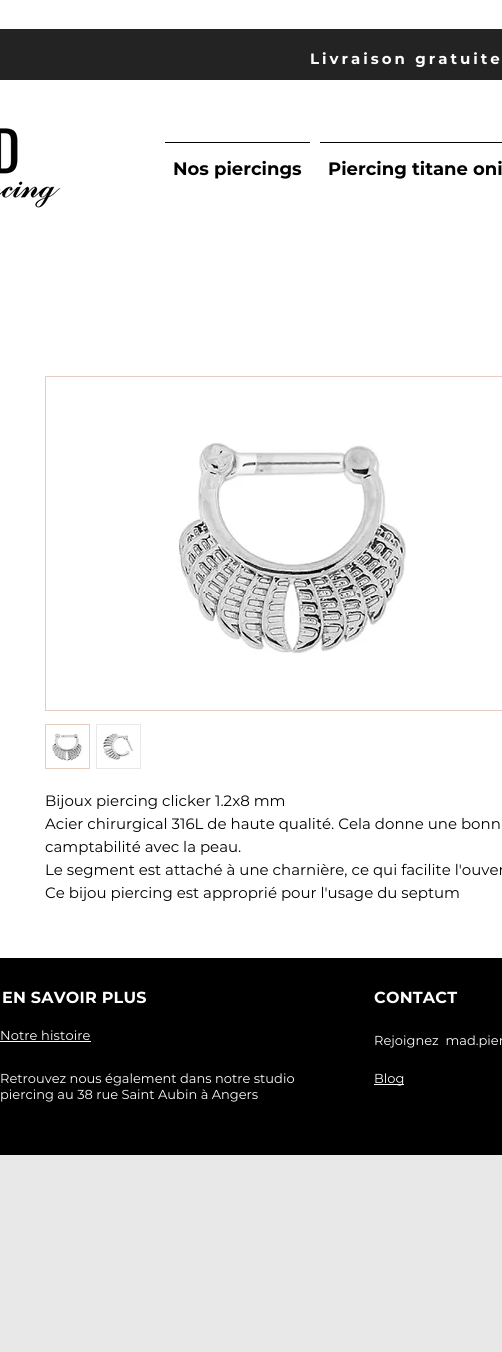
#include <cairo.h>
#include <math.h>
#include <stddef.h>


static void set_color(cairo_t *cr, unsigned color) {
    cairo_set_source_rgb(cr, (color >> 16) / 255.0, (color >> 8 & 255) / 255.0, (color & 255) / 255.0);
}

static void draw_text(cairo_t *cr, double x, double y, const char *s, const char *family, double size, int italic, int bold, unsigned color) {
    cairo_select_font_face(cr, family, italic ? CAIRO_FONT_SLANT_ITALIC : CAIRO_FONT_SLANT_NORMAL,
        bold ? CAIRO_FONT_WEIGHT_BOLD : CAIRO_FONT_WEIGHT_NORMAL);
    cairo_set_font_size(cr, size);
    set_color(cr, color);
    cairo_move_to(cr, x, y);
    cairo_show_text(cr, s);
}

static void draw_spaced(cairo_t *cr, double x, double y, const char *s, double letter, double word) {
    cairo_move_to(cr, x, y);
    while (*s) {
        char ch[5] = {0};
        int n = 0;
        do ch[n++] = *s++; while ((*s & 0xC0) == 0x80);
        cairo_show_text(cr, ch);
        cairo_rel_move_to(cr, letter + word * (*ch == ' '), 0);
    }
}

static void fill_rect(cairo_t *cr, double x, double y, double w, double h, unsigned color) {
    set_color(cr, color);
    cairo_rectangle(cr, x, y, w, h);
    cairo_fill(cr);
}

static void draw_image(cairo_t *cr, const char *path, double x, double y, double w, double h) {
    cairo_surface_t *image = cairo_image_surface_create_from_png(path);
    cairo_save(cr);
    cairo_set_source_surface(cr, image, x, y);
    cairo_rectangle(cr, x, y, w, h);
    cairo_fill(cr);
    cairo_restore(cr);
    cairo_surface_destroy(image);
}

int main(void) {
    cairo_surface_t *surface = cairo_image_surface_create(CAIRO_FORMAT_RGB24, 502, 1352);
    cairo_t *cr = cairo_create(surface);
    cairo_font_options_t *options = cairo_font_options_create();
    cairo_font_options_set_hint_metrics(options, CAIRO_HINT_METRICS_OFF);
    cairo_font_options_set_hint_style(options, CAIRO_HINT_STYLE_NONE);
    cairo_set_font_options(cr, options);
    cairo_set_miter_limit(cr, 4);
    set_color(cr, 0xE8E8E8);
    cairo_paint(cr);
    fill_rect(cr, 0, 0, 502, 958, 0xFFFFFF);
    fill_rect(cr, 0, 29, 502, 51, 0x242323);
    cairo_select_font_face(cr, "Montserrat", CAIRO_FONT_SLANT_NORMAL, CAIRO_FONT_WEIGHT_BOLD);
    cairo_set_font_size(cr, 15);
    set_color(cr, 0xFFFFFF);
    draw_spaced(cr, 310, 64, "Livraison gratuite", 3, 0);
    draw_image(cr, "assets/img1.png", 0, 128, 61, 80);
    fill_rect(cr, 165, 142, 145, 1, 0x000000);
    draw_text(cr, 173, 175, "Nos piercings", "Montserrat", 18, 0, 1, 0x000000);
    fill_rect(cr, 320, 142, 182, 1, 0x000000);
    draw_text(cr, 328, 175, "Piercing titane oni", "Montserrat", 18, 0, 1, 0x000000);
    cairo_rectangle(cr, 45.5, 376.5, 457, 334);
    set_color(cr, 0xE7CDC0);
    cairo_set_line_width(cr, 1);
    cairo_stroke(cr);
    draw_image(cr, "assets/img2.png", 178, 442, 228, 212);
    cairo_rectangle(cr, 45.5, 724.5, 44, 44);
    cairo_stroke(cr);
    draw_image(cr, "assets/img3.png", 46, 725, 43, 43);
    fill_rect(cr, 96, 724, 45, 45, 0xE8E8E8);
    draw_image(cr, "assets/img4.png", 97, 725, 43, 43);
    draw_text(cr, 45, 806, "Bijoux piercing clicker 1.2x8 mm", "Montserrat", 15, 0, 0, 0x000000);
    draw_text(cr, 45, 829, "Acier chirurgical 316L de haute qualité. Cela donne une bonn", "Montserrat", 15, 0, 0, 0x000000);
    draw_text(cr, 45, 852, "camptabilité avec la peau.", "Montserrat", 15, 0, 0, 0x000000);
    draw_text(cr, 45, 875, "Le segment est attaché à une charnière, ce qui facilite l'ouver", "Montserrat", 15, 0, 0, 0x000000);
    draw_text(cr, 45, 898, "Ce bijou piercing est approprié pour l'usage du septum", "Montserrat", 15, 0, 0, 0x000000);
    fill_rect(cr, 0, 958, 502, 197, 0x000000);
    cairo_select_font_face(cr, "Montserrat", CAIRO_FONT_SLANT_NORMAL, CAIRO_FONT_WEIGHT_BOLD);
    cairo_set_font_size(cr, 16);
    set_color(cr, 0xFFFFFF);
    draw_spaced(cr, 2, 1003, "EN SAVOIR PLUS", 0.2, 0);
    draw_spaced(cr, 374, 1003, "CONTACT", 0.2, 0);
    cairo_select_font_face(cr, "Montserrat", CAIRO_FONT_SLANT_NORMAL, CAIRO_FONT_WEIGHT_NORMAL);
    cairo_set_font_size(cr, 13);
    draw_spaced(cr, 0, 1040, "Notre histoire", 0.1, 0);
    fill_rect(cr, 0, 1041, 91, 1, 0xFFFFFF);
    draw_text(cr, 374, 1045, "Rejoignez  mad.pier", "Montserrat", 13, 0, 0, 0xFFFFFF);
    draw_text(cr, 0, 1083, "Retrouvez nous également dans notre studio", "Montserrat", 13, 0, 0, 0xFFFFFF);
    draw_text(cr, 0, 1099, "piercing au 38 rue Saint Aubin à Angers", "Montserrat", 13, 0, 0, 0xFFFFFF);
    fill_rect(cr, 374, 1084, 30, 1, 0xFFFFFF);
    draw_text(cr, 374, 1083, "Blog", "Montserrat", 13, 0, 0, 0xFFFFFF);
    cairo_surface_write_to_png(surface, "output.png");
    cairo_font_options_destroy(options);
    cairo_destroy(cr);
    cairo_surface_destroy(surface);
    return 0;
}
